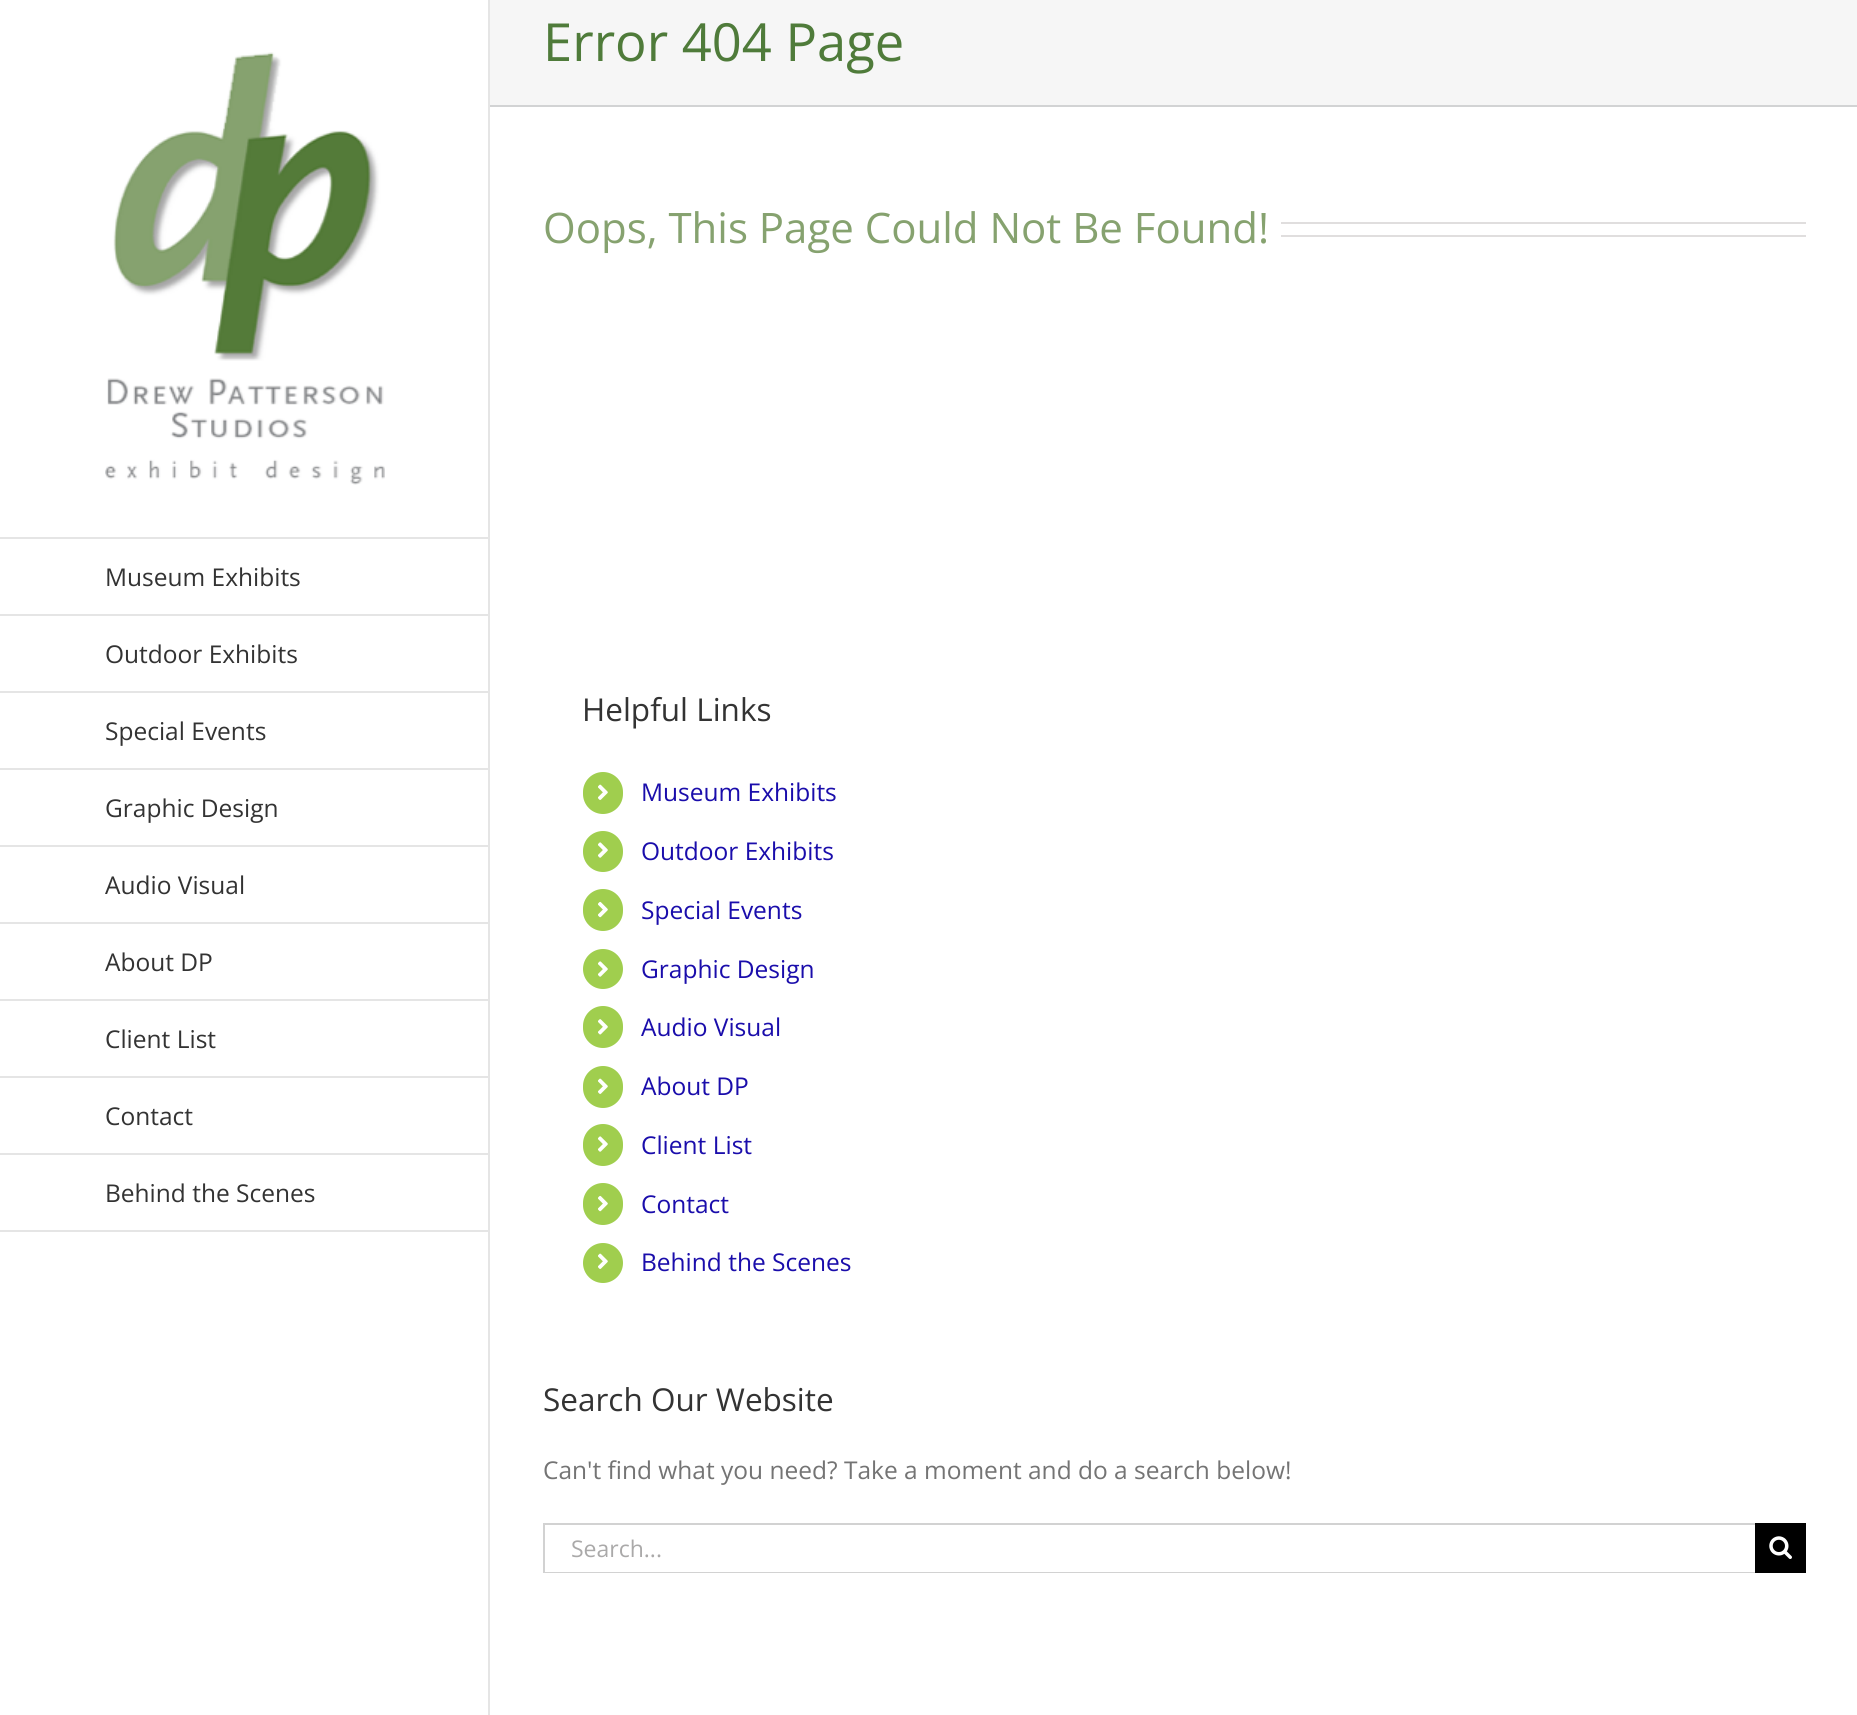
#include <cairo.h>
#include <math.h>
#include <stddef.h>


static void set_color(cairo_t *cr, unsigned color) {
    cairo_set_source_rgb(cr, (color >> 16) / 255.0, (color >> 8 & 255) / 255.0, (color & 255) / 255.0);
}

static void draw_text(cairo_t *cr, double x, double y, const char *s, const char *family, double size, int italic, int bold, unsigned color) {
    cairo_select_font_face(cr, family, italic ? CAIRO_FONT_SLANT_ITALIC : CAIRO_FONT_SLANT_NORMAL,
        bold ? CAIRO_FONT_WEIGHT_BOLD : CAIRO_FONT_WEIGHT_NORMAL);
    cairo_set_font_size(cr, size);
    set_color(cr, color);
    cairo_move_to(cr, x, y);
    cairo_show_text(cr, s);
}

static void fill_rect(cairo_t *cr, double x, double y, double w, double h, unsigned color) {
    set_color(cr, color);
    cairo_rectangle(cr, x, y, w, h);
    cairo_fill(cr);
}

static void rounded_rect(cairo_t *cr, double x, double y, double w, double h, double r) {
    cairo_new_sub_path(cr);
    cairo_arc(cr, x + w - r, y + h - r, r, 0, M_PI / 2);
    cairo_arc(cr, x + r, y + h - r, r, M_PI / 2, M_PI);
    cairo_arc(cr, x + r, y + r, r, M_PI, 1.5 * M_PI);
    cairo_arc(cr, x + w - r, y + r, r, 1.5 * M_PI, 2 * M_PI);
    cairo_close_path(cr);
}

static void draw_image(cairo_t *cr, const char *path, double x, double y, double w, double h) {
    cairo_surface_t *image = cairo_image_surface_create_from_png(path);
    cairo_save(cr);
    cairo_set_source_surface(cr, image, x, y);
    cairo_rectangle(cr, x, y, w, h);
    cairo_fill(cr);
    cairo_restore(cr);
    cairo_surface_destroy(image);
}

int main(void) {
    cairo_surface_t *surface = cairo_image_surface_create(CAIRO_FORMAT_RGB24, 1857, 1715);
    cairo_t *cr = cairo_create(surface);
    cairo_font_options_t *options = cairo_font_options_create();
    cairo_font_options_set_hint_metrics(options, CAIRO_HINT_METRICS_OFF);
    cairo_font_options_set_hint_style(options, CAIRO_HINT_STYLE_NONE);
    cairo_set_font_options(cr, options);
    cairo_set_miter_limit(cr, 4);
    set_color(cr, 0xFFFFFF);
    cairo_paint(cr);
    fill_rect(cr, 490, 0, 1367, 105, 0xF6F6F6);
    fill_rect(cr, 490, 105, 1367, 2, 0xD2D3D4);
    draw_text(cr, 543, 61, "Error 404 Page", "Open Sans", 52.5, 0, 0, 0x4F7B3A);
    draw_image(cr, "assets/img1.png", 105, 52, 280, 433);
    fill_rect(cr, 488, 0, 2, 1715, 0xE5E5E5);
    fill_rect(cr, 0, 537, 490, 2, 0xE5E5E5);
    fill_rect(cr, 0, 614, 490, 2, 0xE5E5E5);
    draw_text(cr, 105, 586, "Museum Exhibits", "Open Sans", 24.5, 0, 0, 0x333333);
    fill_rect(cr, 0, 691, 490, 2, 0xE5E5E5);
    draw_text(cr, 105, 663, "Outdoor Exhibits", "Open Sans", 24.5, 0, 0, 0x333333);
    fill_rect(cr, 0, 768, 490, 2, 0xE5E5E5);
    draw_text(cr, 105, 740, "Special Events", "Open Sans", 24.5, 0, 0, 0x333333);
    fill_rect(cr, 0, 845, 490, 2, 0xE5E5E5);
    draw_text(cr, 105, 817, "Graphic Design", "Open Sans", 24.5, 0, 0, 0x333333);
    fill_rect(cr, 0, 922, 490, 2, 0xE5E5E5);
    draw_text(cr, 105, 894, "Audio Visual", "Open Sans", 24.5, 0, 0, 0x333333);
    fill_rect(cr, 0, 999, 490, 2, 0xE5E5E5);
    draw_text(cr, 105, 971, "About DP", "Open Sans", 24.5, 0, 0, 0x333333);
    fill_rect(cr, 0, 1076, 490, 2, 0xE5E5E5);
    draw_text(cr, 105, 1048, "Client List", "Open Sans", 24.5, 0, 0, 0x333333);
    fill_rect(cr, 0, 1153, 490, 2, 0xE5E5E5);
    draw_text(cr, 105, 1125, "Contact", "Open Sans", 24.5, 0, 0, 0x333333);
    fill_rect(cr, 0, 1230, 490, 2, 0xE5E5E5);
    draw_text(cr, 105, 1202, "Behind the Scenes", "Open Sans", 24.5, 0, 0, 0x333333);
    draw_text(cr, 543, 243, "Oops, This Page Could Not Be Found!", "Open Sans", 42, 0, 0, 0x86A26F);
    fill_rect(cr, 1281, 222, 525, 2, 0xE0DEDE);
    fill_rect(cr, 1281, 235, 525, 2, 0xE0DEDE);
    draw_text(cr, 582, 721, "Helpful Links", "Open Sans", 31.5, 0, 0, 0x333333);
    set_color(cr, 0xA0CE4E);
    rounded_rect(cr, 583, 772, 40, 42, 20);
    cairo_fill(cr);
    draw_image(cr, "assets/img2.png", 598, 784, 10, 16);
    draw_text(cr, 641, 801, "Museum Exhibits", "Open Sans", 24.5, 0, 0, 0x1A0DAB);
    set_color(cr, 0xA0CE4E);
    rounded_rect(cr, 583, 831, 40, 41, 20);
    cairo_fill(cr);
    draw_image(cr, "assets/img3.png", 598, 842, 10, 16);
    draw_text(cr, 641, 860, "Outdoor Exhibits", "Open Sans", 24.5, 0, 0, 0x1A0DAB);
    set_color(cr, 0xA0CE4E);
    rounded_rect(cr, 583, 889, 40, 42, 20);
    cairo_fill(cr);
    draw_image(cr, "assets/img4.png", 598, 901, 10, 17);
    draw_text(cr, 641, 919, "Special Events", "Open Sans", 24.5, 0, 0, 0x1A0DAB);
    set_color(cr, 0xA0CE4E);
    cairo_new_path(cr);
    cairo_arc(cr, 603, 969, 20, 0, 2 * M_PI);
    cairo_fill(cr);
    draw_image(cr, "assets/img3.png", 598, 961, 10, 16);
    draw_text(cr, 641, 978, "Graphic Design", "Open Sans", 24.5, 0, 0, 0x1A0DAB);
    set_color(cr, 0xA0CE4E);
    rounded_rect(cr, 583, 1006, 40, 42, 20);
    cairo_fill(cr);
    draw_image(cr, "assets/img5.png", 598, 1019, 10, 16);
    draw_text(cr, 641, 1036, "Audio Visual", "Open Sans", 24.5, 0, 0, 0x1A0DAB);
    set_color(cr, 0xA0CE4E);
    rounded_rect(cr, 583, 1066, 40, 42, 20);
    cairo_fill(cr);
    draw_image(cr, "assets/img2.png", 598, 1078, 10, 16);
    draw_text(cr, 641, 1095, "About DP", "Open Sans", 24.5, 0, 0, 0x1A0DAB);
    set_color(cr, 0xA0CE4E);
    rounded_rect(cr, 583, 1124, 40, 42, 20);
    cairo_fill(cr);
    draw_image(cr, "assets/img3.png", 598, 1136, 10, 16);
    draw_text(cr, 641, 1154, "Client List", "Open Sans", 24.5, 0, 0, 0x1A0DAB);
    set_color(cr, 0xA0CE4E);
    rounded_rect(cr, 583, 1183, 40, 42, 20);
    cairo_fill(cr);
    draw_image(cr, "assets/img4.png", 598, 1195, 10, 17);
    draw_text(cr, 641, 1213, "Contact", "Open Sans", 24.5, 0, 0, 0x1A0DAB);
    set_color(cr, 0xA0CE4E);
    cairo_new_path(cr);
    cairo_arc(cr, 603, 1263, 20, 0, 2 * M_PI);
    cairo_fill(cr);
    draw_image(cr, "assets/img2.png", 598, 1253, 10, 16);
    draw_text(cr, 641, 1271, "Behind the Scenes", "Open Sans", 24.5, 0, 0, 0x1A0DAB);
    draw_text(cr, 543, 1411, "Search Our Website", "Open Sans", 31.5, 0, 0, 0x333333);
    draw_text(cr, 543, 1479, "Can't find what you need? Take a moment and do a search below!", "Open Sans", 24.5, 0, 0, 0x747474);
    fill_rect(cr, 543, 1523, 1212, 2, 0xD2D2D2);
    fill_rect(cr, 543, 1572, 1212, 1, 0xD2D2D2);
    fill_rect(cr, 543, 1523, 2, 50, 0xD2D2D2);
    draw_text(cr, 571, 1557, "Search...", "Open Sans", 23, 0, 0, 0xAAA9A9);
    fill_rect(cr, 1755, 1523, 51, 50, 0x000000);
    draw_image(cr, "assets/img6.png", 1769, 1536, 23, 23);
    cairo_surface_write_to_png(surface, "output.png");
    cairo_font_options_destroy(options);
    cairo_destroy(cr);
    cairo_surface_destroy(surface);
    return 0;
}
